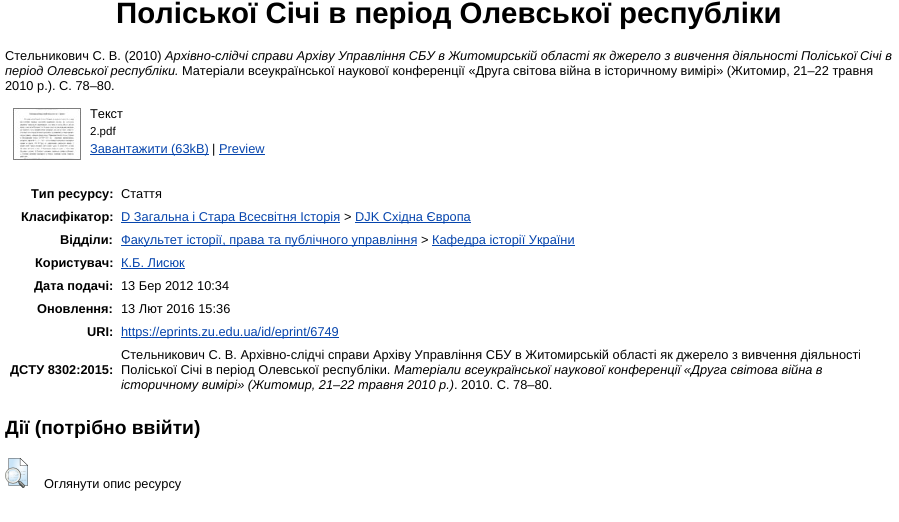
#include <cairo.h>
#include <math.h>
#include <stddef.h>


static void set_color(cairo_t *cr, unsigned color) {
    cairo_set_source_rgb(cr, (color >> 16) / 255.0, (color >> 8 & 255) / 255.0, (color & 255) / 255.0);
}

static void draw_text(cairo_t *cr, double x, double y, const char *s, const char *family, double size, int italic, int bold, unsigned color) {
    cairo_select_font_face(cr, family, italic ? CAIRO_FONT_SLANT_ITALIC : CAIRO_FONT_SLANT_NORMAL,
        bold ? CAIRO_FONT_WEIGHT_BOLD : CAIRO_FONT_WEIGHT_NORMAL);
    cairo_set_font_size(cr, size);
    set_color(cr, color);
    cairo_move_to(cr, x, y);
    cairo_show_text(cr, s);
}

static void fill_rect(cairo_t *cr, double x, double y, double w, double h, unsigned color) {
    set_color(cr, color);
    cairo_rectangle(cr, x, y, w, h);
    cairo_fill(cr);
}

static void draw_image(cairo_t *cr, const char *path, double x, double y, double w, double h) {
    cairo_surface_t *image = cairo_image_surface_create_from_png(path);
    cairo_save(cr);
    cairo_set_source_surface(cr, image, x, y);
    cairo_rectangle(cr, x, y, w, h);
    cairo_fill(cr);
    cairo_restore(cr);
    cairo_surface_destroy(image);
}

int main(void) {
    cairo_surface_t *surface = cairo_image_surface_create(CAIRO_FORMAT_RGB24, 899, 522);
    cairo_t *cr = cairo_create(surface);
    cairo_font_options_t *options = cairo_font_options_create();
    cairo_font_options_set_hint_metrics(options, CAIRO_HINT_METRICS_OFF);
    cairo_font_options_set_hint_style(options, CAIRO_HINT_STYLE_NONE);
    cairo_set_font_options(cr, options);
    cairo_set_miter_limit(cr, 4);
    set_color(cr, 0xFFFFFF);
    cairo_paint(cr);
    draw_text(cr, 116, 23, "Поліської Січі в період Олевської республіки", "Liberation Sans", 29.4, 0, 1, 0x000000);
    draw_text(cr, 5, 60, "Стельникович С. В. (2010)", "Liberation Sans", 12.8, 0, 0, 0x000000);
    draw_text(cr, 165, 60, "Архівно-слідчі справи Архіву Управління СБУ в Житомирській області як джерело з вивчення діяльності Поліської Січі в", "Liberation Sans", 12.8, 1, 0, 0x000000);
    draw_text(cr, 5, 75, "період Олевської республіки.", "Liberation Sans", 12.8, 1, 0, 0x000000);
    draw_text(cr, 182, 75, "Матеріали всеукраїнської наукової конференції «Друга світова війна в історичному вимірі» (Житомир, 21–22 травня", "Liberation Sans", 12.8, 0, 0, 0x000000);
    draw_text(cr, 5, 90, "2010 р.). С. 78–80.", "Liberation Sans", 12.8, 0, 0, 0x000000);
    draw_image(cr, "assets/img1.png", 13, 108, 68, 52);
    draw_text(cr, 90, 118, "Текст", "Liberation Sans", 12.8, 0, 0, 0x000000);
    draw_text(cr, 90, 135, "2.pdf", "Liberation Sans", 11.5, 0, 0, 0x000000);
    fill_rect(cr, 90, 154, 119, 1, 0x0645AD);
    draw_text(cr, 90, 153, "Завантажити (63kB)", "Liberation Sans", 12.8, 0, 0, 0x0645AD);
    draw_text(cr, 212, 153, "|", "Liberation Sans", 12.8, 0, 0, 0x000000);
    draw_text(cr, 219, 153, "Preview", "Liberation Sans", 12.8, 0, 0, 0x0645AD);
    fill_rect(cr, 219, 154, 46, 1, 0x0645AD);
    draw_text(cr, 31, 198, "Тип ресурсу:", "Liberation Sans", 12.8, 0, 1, 0x000000);
    draw_text(cr, 121, 198, "Стаття", "Liberation Sans", 12.8, 0, 0, 0x000000);
    draw_text(cr, 21, 221, "Класифікатор:", "Liberation Sans", 12.8, 0, 1, 0x000000);
    fill_rect(cr, 121, 222, 219, 1, 0x0645AD);
    draw_text(cr, 121, 221, "D Загальна і Стара Всесвітня Історія", "Liberation Sans", 12.8, 0, 0, 0x0645AD);
    draw_text(cr, 344, 221, ">", "Liberation Sans", 12.8, 0, 0, 0x000000);
    fill_rect(cr, 355, 222, 116, 1, 0x0645AD);
    draw_text(cr, 355, 221, "DJK Східна Європа", "Liberation Sans", 12.8, 0, 0, 0x0645AD);
    draw_text(cr, 60, 244, "Відділи:", "Liberation Sans", 12.8, 0, 1, 0x000000);
    fill_rect(cr, 121, 245, 296, 1, 0x0645AD);
    draw_text(cr, 121, 244, "Факультет історії, права та публічного управління", "Liberation Sans", 12.8, 0, 0, 0x0645AD);
    draw_text(cr, 421, 244, ">", "Liberation Sans", 12.8, 0, 0, 0x000000);
    fill_rect(cr, 432, 245, 143, 1, 0x0645AD);
    draw_text(cr, 432, 244, "Кафедра історії України", "Liberation Sans", 12.8, 0, 0, 0x0645AD);
    draw_text(cr, 35, 267, "Користувач:", "Liberation Sans", 12.8, 0, 1, 0x000000);
    draw_text(cr, 121, 267, "К.Б. Лисюк", "Liberation Sans", 12.8, 0, 0, 0x0645AD);
    fill_rect(cr, 121, 268, 64, 1, 0x0645AD);
    draw_text(cr, 34, 290, "Дата подачі:", "Liberation Sans", 12.8, 0, 1, 0x000000);
    draw_text(cr, 121, 290, "13 Бер 2012 10:34", "Liberation Sans", 12.8, 0, 0, 0x000000);
    draw_text(cr, 37, 313, "Оновлення:", "Liberation Sans", 12.8, 0, 1, 0x000000);
    draw_text(cr, 121, 313, "13 Лют 2016 15:36", "Liberation Sans", 12.8, 0, 0, 0x000000);
    draw_text(cr, 87, 336, "URI:", "Liberation Sans", 12.8, 0, 1, 0x000000);
    fill_rect(cr, 121, 337, 218, 1, 0x0645AD);
    draw_text(cr, 121, 336, "https://eprints.zu.edu.ua/id/eprint/6749", "Liberation Sans", 12.8, 0, 0, 0x0645AD);
    draw_text(cr, 10, 374, "ДСТУ 8302:2015:", "Liberation Sans", 12.8, 0, 1, 0x000000);
    draw_text(cr, 121, 359, "Стельникович С. В. Архівно-слідчі справи Архіву Управління СБУ в Житомирській області як джерело з вивчення діяльності", "Liberation Sans", 12.8, 0, 0, 0x000000);
    draw_text(cr, 121, 374, "Поліської Січі в період Олевської республіки.", "Liberation Sans", 12.8, 0, 0, 0x000000);
    draw_text(cr, 394, 374, "Матеріали всеукраїнської наукової конференції «Друга світова війна в", "Liberation Sans", 12.8, 1, 0, 0x000000);
    draw_text(cr, 121, 389, "історичному вимірі» (Житомир, 21–22 травня 2010 р.)", "Liberation Sans", 12.8, 1, 0, 0x000000);
    draw_text(cr, 454, 389, ". 2010. С. 78–80.", "Liberation Sans", 12.8, 0, 0, 0x000000);
    draw_text(cr, 5, 434, "Дії (потрібно ввійти)", "Liberation Sans", 19.25, 0, 1, 0x000000);
    draw_image(cr, "assets/img2.png", 5, 458, 23, 30);
    draw_text(cr, 44, 488, "Оглянути опис ресурсу", "Liberation Sans", 12.8, 0, 0, 0x000000);
    cairo_surface_write_to_png(surface, "output.png");
    cairo_font_options_destroy(options);
    cairo_destroy(cr);
    cairo_surface_destroy(surface);
    return 0;
}
